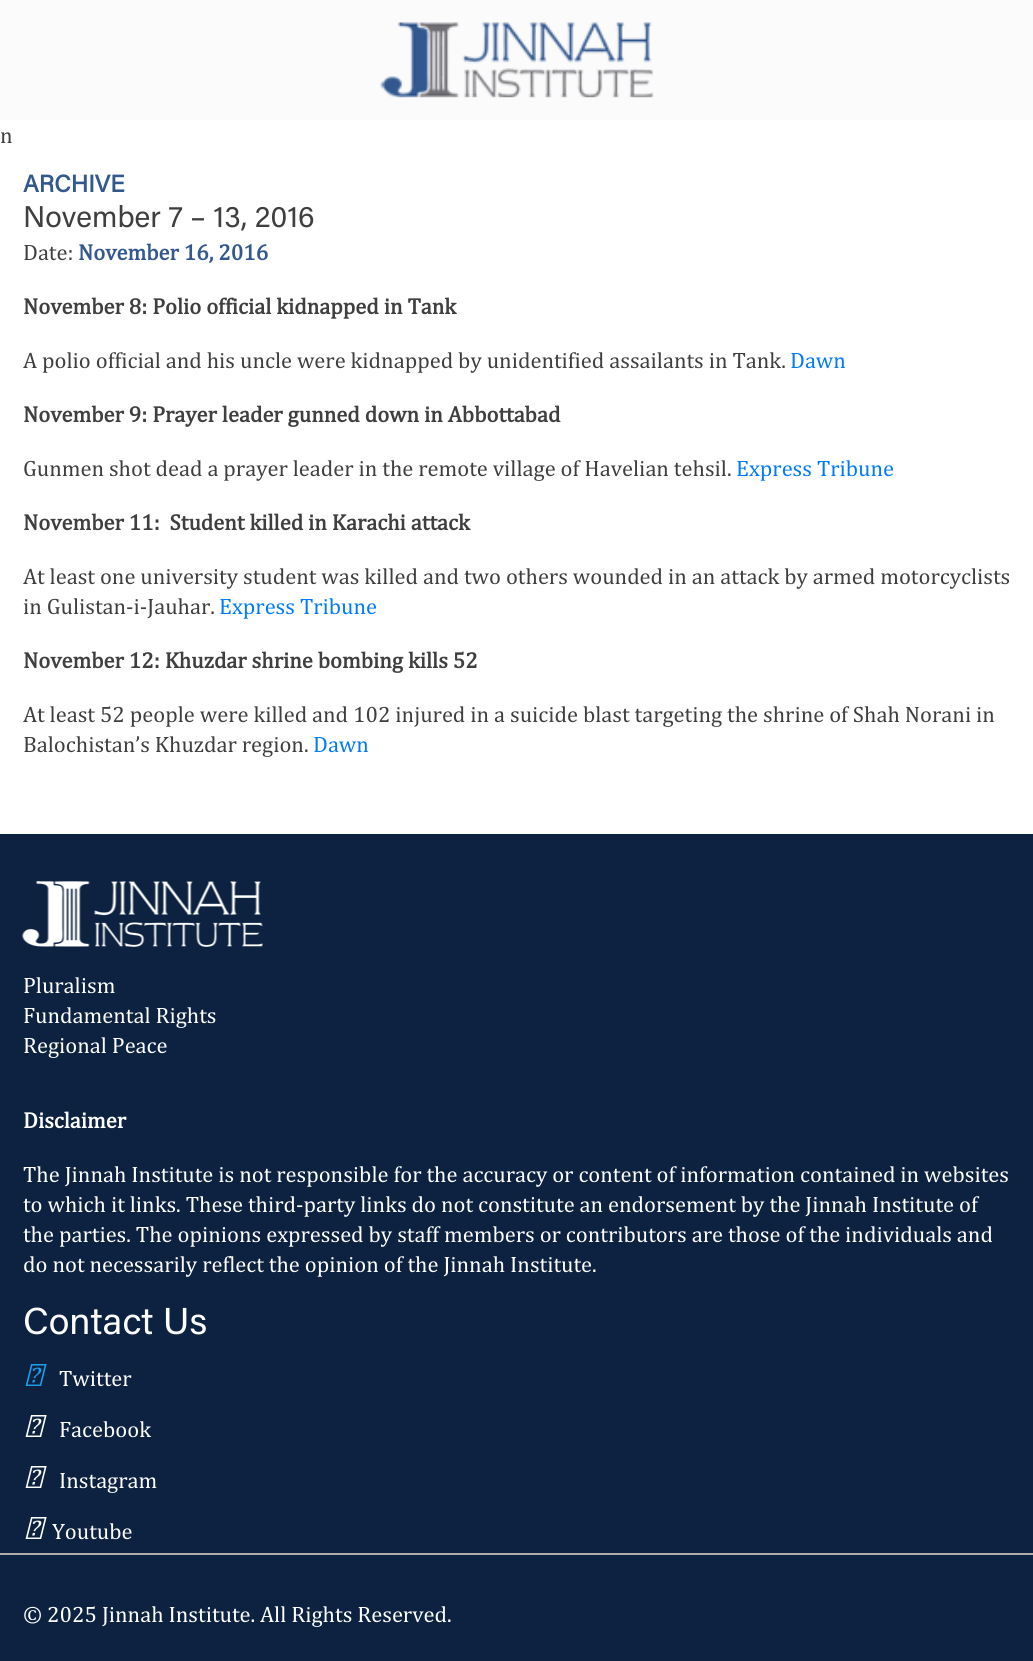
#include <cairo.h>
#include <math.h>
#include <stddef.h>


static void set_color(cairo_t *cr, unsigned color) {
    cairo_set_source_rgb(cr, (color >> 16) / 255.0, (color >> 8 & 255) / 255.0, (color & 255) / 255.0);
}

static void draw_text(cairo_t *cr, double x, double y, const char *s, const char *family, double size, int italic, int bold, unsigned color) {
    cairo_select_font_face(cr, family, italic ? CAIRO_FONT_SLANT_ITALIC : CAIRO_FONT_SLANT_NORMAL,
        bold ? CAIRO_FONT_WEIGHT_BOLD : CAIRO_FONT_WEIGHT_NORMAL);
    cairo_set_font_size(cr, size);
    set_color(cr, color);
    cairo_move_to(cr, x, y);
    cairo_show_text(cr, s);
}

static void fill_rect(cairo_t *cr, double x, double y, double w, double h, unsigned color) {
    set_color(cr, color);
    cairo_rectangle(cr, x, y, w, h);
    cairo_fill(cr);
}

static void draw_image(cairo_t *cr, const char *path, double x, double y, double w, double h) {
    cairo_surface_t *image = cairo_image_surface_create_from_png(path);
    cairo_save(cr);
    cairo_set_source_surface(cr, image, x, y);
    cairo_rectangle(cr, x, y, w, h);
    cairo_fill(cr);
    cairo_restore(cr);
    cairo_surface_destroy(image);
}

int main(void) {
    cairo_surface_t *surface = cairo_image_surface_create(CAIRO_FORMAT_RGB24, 1033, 1661);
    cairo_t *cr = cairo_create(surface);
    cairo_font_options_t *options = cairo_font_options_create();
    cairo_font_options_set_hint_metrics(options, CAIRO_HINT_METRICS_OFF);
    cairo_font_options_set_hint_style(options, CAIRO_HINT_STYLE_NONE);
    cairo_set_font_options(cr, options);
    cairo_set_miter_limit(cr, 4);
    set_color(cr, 0xFFFFFF);
    cairo_paint(cr);
    fill_rect(cr, 0, 0, 1033, 120, 0xFBFBFB);
    draw_image(cr, "assets/img1.png", 379, 22, 275, 76);
    draw_text(cr, 0, 143, "n", "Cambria", 22.5, 0, 0, 0x3F3F3F);
    draw_text(cr, 23, 192, "ARCHIVE", "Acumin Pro", 24, 0, 1, 0x33588F);
    draw_text(cr, 23, 227, "November 7 – 13, 2016", "Acumin Pro", 30, 0, 0, 0x3F3F3F);
    draw_text(cr, 23, 260, "Date:", "Cambria", 22.5, 0, 0, 0x3F3F3F);
    draw_text(cr, 78, 260, "November 16, 2016", "Cambria", 22.5, 0, 1, 0x33588F);
    draw_text(cr, 23, 314, "November 8: Polio official kidnapped in Tank", "Cambria", 22.5, 0, 1, 0x3F3F3F);
    draw_text(cr, 23, 368, "A polio official and his uncle were kidnapped by unidentified assailants in Tank.", "Cambria", 22.5, 0, 0, 0x3F3F3F);
    draw_text(cr, 790, 368, "Dawn", "Cambria", 22.5, 0, 0, 0x007BFF);
    draw_text(cr, 23, 422, "November 9: Prayer leader gunned down in Abbottabad", "Cambria", 22.5, 0, 1, 0x3F3F3F);
    draw_text(cr, 23, 476, "Gunmen shot dead a prayer leader in the remote village of Havelian tehsil.", "Cambria", 22.5, 0, 0, 0x3F3F3F);
    draw_text(cr, 736, 476, "Express Tribune", "Cambria", 22.5, 0, 0, 0x007BFF);
    draw_text(cr, 23, 530, "November 11:  Student killed in Karachi attack", "Cambria", 22.5, 0, 1, 0x3F3F3F);
    draw_text(cr, 23, 584, "At least one university student was killed and two others wounded in an attack by armed motorcyclists", "Cambria", 22.5, 0, 0, 0x3F3F3F);
    draw_text(cr, 23, 614, "in Gulistan-i-Jauhar.", "Cambria", 22.5, 0, 0, 0x3F3F3F);
    draw_text(cr, 219, 614, "Express Tribune", "Cambria", 22.5, 0, 0, 0x007BFF);
    draw_text(cr, 23, 668, "November 12: Khuzdar shrine bombing kills 52", "Cambria", 22.5, 0, 1, 0x3F3F3F);
    draw_text(cr, 23, 722, "At least 52 people were killed and 102 injured in a suicide blast targeting the shrine of Shah Norani in", "Cambria", 22.5, 0, 0, 0x3F3F3F);
    draw_text(cr, 23, 752, "Balochistan’s Khuzdar region.", "Cambria", 22.5, 0, 0, 0x3F3F3F);
    draw_text(cr, 313, 752, "Dawn", "Cambria", 22.5, 0, 0, 0x007BFF);
    fill_rect(cr, 0, 834, 1033, 827, 0x0D2240);
    draw_image(cr, "assets/img2.png", 22, 881, 241, 66);
    draw_text(cr, 23, 993, "Pluralism", "Cambria", 22.5, 0, 0, 0xFFFFFF);
    draw_text(cr, 23, 1023, "Fundamental Rights", "Cambria", 22.5, 0, 0, 0xFFFFFF);
    draw_text(cr, 23, 1053, "Regional Peace", "Cambria", 22.5, 0, 0, 0xFFFFFF);
    draw_text(cr, 23, 1128, "Disclaimer", "Cambria", 22.5, 0, 1, 0xFFFFFF);
    draw_text(cr, 23, 1182, "The Jinnah Institute is not responsible for the accuracy or content of information contained in websites", "Cambria", 22.5, 0, 0, 0xFFFFFF);
    draw_text(cr, 23, 1212, "to which it links. These third-party links do not constitute an endorsement by the Jinnah Institute of", "Cambria", 22.5, 0, 0, 0xFFFFFF);
    draw_text(cr, 23, 1242, "the parties. The opinions expressed by staff members or contributors are those of the individuals and", "Cambria", 22.5, 0, 0, 0xFFFFFF);
    draw_text(cr, 23, 1272, "do not necessarily reflect the opinion of the Jinnah Institute.", "Cambria", 22.5, 0, 0, 0xFFFFFF);
    fill_rect(cr, 0, 1553, 1033, 2, 0xAFACAB);
    draw_text(cr, 23, 1334, "Contact Us", "Acumin Pro", 37.5, 0, 0, 0xFFFFFF);
    draw_image(cr, "assets/img3.png", 25, 1364, 22, 22);
    draw_text(cr, 59, 1386, "Twitter", "Cambria", 22.5, 0, 0, 0xFFFFFF);
    draw_image(cr, "assets/img4.png", 25, 1415, 22, 22);
    draw_text(cr, 59, 1437, "Facebook", "Cambria", 22.5, 0, 0, 0xFFFFFF);
    draw_image(cr, "assets/img4.png", 25, 1466, 22, 22);
    draw_text(cr, 59, 1488, "Instagram", "Cambria", 22.5, 0, 0, 0xFFFFFF);
    draw_image(cr, "assets/img4.png", 25, 1517, 22, 22);
    draw_text(cr, 52, 1539, "Youtube", "Cambria", 22.5, 0, 0, 0xFFFFFF);
    draw_text(cr, 23, 1622, "© 2025 Jinnah Institute. All Rights Reserved.", "Cambria", 22.5, 0, 0, 0xFFFFFF);
    cairo_surface_write_to_png(surface, "output.png");
    cairo_font_options_destroy(options);
    cairo_destroy(cr);
    cairo_surface_destroy(surface);
    return 0;
}
